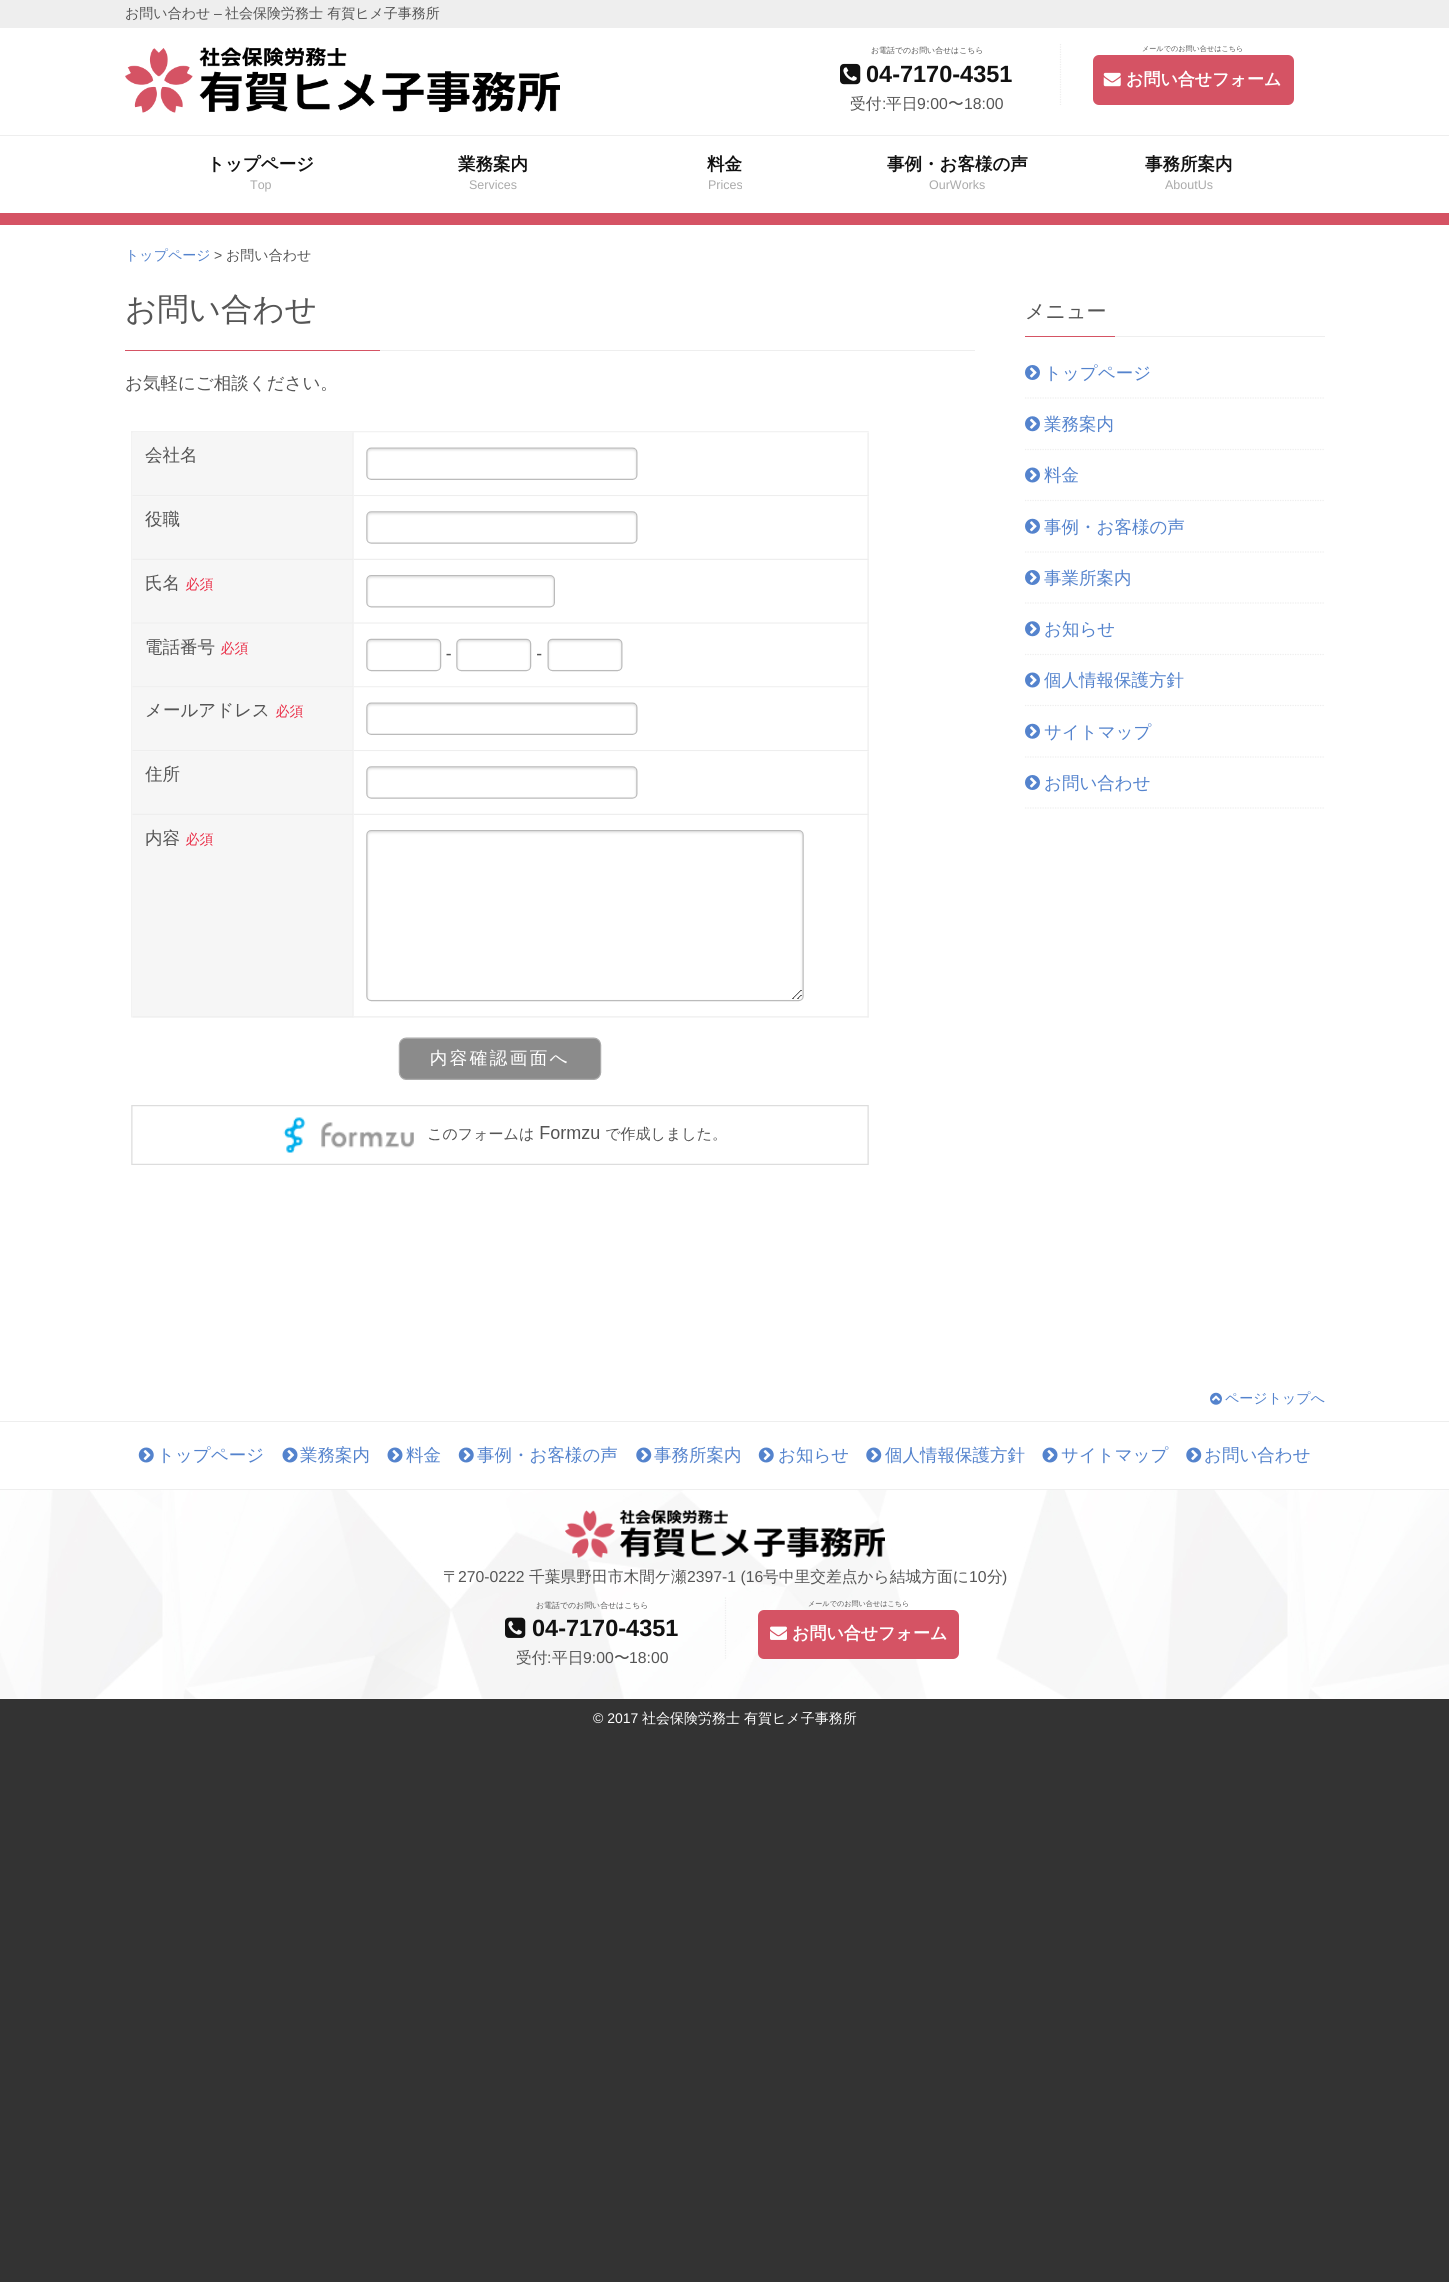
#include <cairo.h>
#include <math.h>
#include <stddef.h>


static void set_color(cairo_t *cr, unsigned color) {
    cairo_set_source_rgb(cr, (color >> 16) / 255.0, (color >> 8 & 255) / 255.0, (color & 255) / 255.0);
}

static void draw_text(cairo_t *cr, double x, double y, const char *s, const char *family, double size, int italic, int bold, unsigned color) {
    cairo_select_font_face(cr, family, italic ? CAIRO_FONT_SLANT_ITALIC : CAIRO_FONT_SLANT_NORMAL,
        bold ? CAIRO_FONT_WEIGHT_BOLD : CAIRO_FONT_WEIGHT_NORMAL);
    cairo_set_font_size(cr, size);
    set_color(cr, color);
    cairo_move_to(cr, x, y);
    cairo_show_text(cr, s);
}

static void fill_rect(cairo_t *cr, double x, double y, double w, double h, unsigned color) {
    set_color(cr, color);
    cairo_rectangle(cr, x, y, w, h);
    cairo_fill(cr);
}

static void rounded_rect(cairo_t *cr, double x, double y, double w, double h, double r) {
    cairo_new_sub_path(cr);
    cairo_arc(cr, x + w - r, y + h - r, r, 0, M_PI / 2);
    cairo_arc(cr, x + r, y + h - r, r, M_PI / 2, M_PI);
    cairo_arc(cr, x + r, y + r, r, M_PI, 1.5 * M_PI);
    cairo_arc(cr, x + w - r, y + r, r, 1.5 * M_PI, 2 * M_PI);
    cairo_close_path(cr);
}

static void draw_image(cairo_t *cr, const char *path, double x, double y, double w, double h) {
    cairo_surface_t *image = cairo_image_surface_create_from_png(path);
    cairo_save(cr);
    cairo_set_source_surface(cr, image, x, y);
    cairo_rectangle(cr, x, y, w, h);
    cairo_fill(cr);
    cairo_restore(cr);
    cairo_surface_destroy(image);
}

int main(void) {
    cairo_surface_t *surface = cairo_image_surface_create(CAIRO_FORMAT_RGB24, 1449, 2282);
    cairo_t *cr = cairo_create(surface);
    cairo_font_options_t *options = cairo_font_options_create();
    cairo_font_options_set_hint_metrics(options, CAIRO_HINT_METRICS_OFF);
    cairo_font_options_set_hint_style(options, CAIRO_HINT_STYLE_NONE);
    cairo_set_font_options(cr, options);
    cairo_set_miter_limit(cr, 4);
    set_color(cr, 0x333333);
    cairo_paint(cr);
    fill_rect(cr, 0, 28, 1449, 1671, 0xFFFFFF);
    fill_rect(cr, 0, 0, 1449, 28, 0xEEEEEE);
    draw_text(cr, 125, 18, "お問い合わせ", "WenQuanYi Zen Hei Medium", 14, 0, 0, 0x555555);
    draw_text(cr, 214, 18, "–", "Liberation Sans", 14, 0, 0, 0x555555);
    draw_text(cr, 225, 18, "社会保険労務士 有賀ヒメ子事務所", "WenQuanYi Zen Hei Medium", 14, 0, 0, 0x555555);
    draw_image(cr, "assets/img1.png", 125, 47, 435, 66);
    draw_text(cr, 871, 53, "お電話でのお問い合せはこちら", "WenQuanYi Zen Hei Medium", 7.9, 0, 0, 0x555555);
    draw_image(cr, "assets/img2.png", 840, 63, 21, 22);
    draw_text(cr, 866, 82, "04-7170-4351", "Liberation Sans", 23.5, 0, 1, 0x111111);
    draw_text(cr, 850, 109, "受付", "WenQuanYi Zen Hei Medium", 15.75, 0, 0, 0x555555);
    draw_text(cr, 882, 109, ":", "Liberation Sans", 15.75, 0, 0, 0x555555);
    draw_text(cr, 886, 109, "平日", "WenQuanYi Zen Hei Medium", 15.75, 0, 0, 0x555555);
    draw_text(cr, 917, 109, "9:00", "Liberation Sans", 15.75, 0, 0, 0x555555);
    draw_text(cr, 948, 109, "〜", "WenQuanYi Zen Hei Medium", 15.75, 0, 0, 0x555555);
    draw_text(cr, 964, 109, "18:00", "Liberation Sans", 15.75, 0, 0, 0x555555);
    cairo_new_path(cr);
    cairo_move_to(cr, 1060.5, 44);
    cairo_line_to(cr, 1060.5, 105);
    set_color(cr, 0xEEEEEE);
    cairo_set_line_width(cr, 1.2);
    cairo_set_dash(cr, (double[]){1.25, 1.25}, 2, 0);
    cairo_stroke(cr);
    draw_text(cr, 1142, 51, "メールでのお問い合せはこちら", "WenQuanYi Zen Hei Medium", 7.1, 0, 0, 0x555555);
    set_color(cr, 0xD55364);
    rounded_rect(cr, 1093, 55, 201, 50, 6);
    cairo_fill(cr);
    draw_image(cr, "assets/img3.png", 1103, 72, 18, 15);
    draw_text(cr, 1126, 85, "お問い合せフォーム", "WenQuanYi Zen Hei", 17, 0, 1, 0xFFFFFF);
    fill_rect(cr, 0, 135, 1449, 1, 0xEEEEEE);
    fill_rect(cr, 0, 213, 1449, 12, 0xD55364);
    draw_text(cr, 207, 170, "トップページ", "WenQuanYi Zen Hei", 17.5, 0, 1, 0x111111);
    draw_text(cr, 250, 189, "Top", "Liberation Sans", 12.5, 0, 0, 0xAAAAAA);
    draw_text(cr, 458, 170, "業務案内", "WenQuanYi Zen Hei", 17.5, 0, 1, 0x111111);
    draw_text(cr, 469, 189, "Services", "Liberation Sans", 12.5, 0, 0, 0xAAAAAA);
    draw_text(cr, 707, 170, "料金", "WenQuanYi Zen Hei", 17.5, 0, 1, 0x111111);
    draw_text(cr, 708, 189, "Prices", "Liberation Sans", 12.5, 0, 0, 0xAAAAAA);
    draw_text(cr, 887, 170, "事例・お客様の声", "WenQuanYi Zen Hei", 17.5, 0, 1, 0x111111);
    draw_text(cr, 929, 189, "OurWorks", "Liberation Sans", 12.5, 0, 0, 0xAAAAAA);
    draw_text(cr, 1145, 170, "事務所案内", "WenQuanYi Zen Hei", 17.5, 0, 1, 0x111111);
    draw_text(cr, 1165, 189, "AboutUs", "Liberation Sans", 12.5, 0, 0, 0xAAAAAA);
    draw_text(cr, 125, 260, "トップページ", "WenQuanYi Zen Hei Medium", 14, 0, 0, 0x5483CD);
    draw_text(cr, 214, 260, ">", "Liberation Sans", 14, 0, 0, 0x555555);
    draw_text(cr, 226, 260, "お問い合わせ", "WenQuanYi Zen Hei Medium", 14, 0, 0, 0x555555);
    fill_rect(cr, 380, 350, 595, 1, 0xEEEEEE);
    draw_text(cr, 125, 320, "お問い合わせ", "WenQuanYi Zen Hei Medium", 31.5, 0, 0, 0x555555);
    fill_rect(cr, 125, 350, 255, 1, 0xD55364);
    draw_text(cr, 125, 389, "お気軽にご相談ください。", "WenQuanYi Zen Hei Medium", 17.5, 0, 0, 0x555555);
    draw_image(cr, "assets/img4.png", 131, 431, 738, 734);
    fill_rect(cr, 1115, 336, 210, 1, 0xEEEEEE);
    draw_text(cr, 1025, 318, "メニュー", "WenQuanYi Zen Hei Medium", 20, 0, 0, 0x555555);
    fill_rect(cr, 1025, 336, 90, 1, 0xD55364);
    cairo_new_path(cr);
    cairo_move_to(cr, 1025, 398);
    cairo_line_to(cr, 1325, 398);
    set_color(cr, 0xEEEEEE);
    cairo_stroke(cr);
    draw_image(cr, "assets/img5.png", 1025, 365, 15, 15);
    draw_text(cr, 1044, 379, "トップページ", "WenQuanYi Zen Hei Medium", 17.5, 0, 0, 0x5483CD);
    cairo_new_path(cr);
    cairo_move_to(cr, 1025, 449.5);
    cairo_line_to(cr, 1325, 449.5);
    set_color(cr, 0xEEEEEE);
    cairo_stroke(cr);
    draw_image(cr, "assets/img6.png", 1025, 416, 15, 16);
    draw_text(cr, 1044, 430, "業務案内", "WenQuanYi Zen Hei Medium", 17.5, 0, 0, 0x5483CD);
    cairo_new_path(cr);
    cairo_move_to(cr, 1025, 500.5);
    cairo_line_to(cr, 1325, 500.5);
    set_color(cr, 0xEEEEEE);
    cairo_stroke(cr);
    draw_image(cr, "assets/img7.png", 1025, 467, 15, 16);
    draw_text(cr, 1044, 481, "料金", "WenQuanYi Zen Hei Medium", 17.5, 0, 0, 0x5483CD);
    cairo_new_path(cr);
    cairo_move_to(cr, 1025, 552);
    cairo_line_to(cr, 1325, 552);
    set_color(cr, 0xEEEEEE);
    cairo_stroke(cr);
    draw_image(cr, "assets/img8.png", 1025, 518, 15, 16);
    draw_text(cr, 1044, 533, "事例・お客様の声", "WenQuanYi Zen Hei Medium", 17.5, 0, 0, 0x5483CD);
    cairo_new_path(cr);
    cairo_move_to(cr, 1025, 603);
    cairo_line_to(cr, 1325, 603);
    set_color(cr, 0xEEEEEE);
    cairo_stroke(cr);
    draw_image(cr, "assets/img5.png", 1025, 570, 15, 15);
    draw_text(cr, 1044, 584, "事業所案内", "WenQuanYi Zen Hei Medium", 17.5, 0, 0, 0x5483CD);
    cairo_new_path(cr);
    cairo_move_to(cr, 1025, 654.5);
    cairo_line_to(cr, 1325, 654.5);
    set_color(cr, 0xEEEEEE);
    cairo_stroke(cr);
    draw_image(cr, "assets/img6.png", 1025, 621, 15, 16);
    draw_text(cr, 1044, 635, "お知らせ", "WenQuanYi Zen Hei Medium", 17.5, 0, 0, 0x5483CD);
    cairo_new_path(cr);
    cairo_move_to(cr, 1025, 705.5);
    cairo_line_to(cr, 1325, 705.5);
    set_color(cr, 0xEEEEEE);
    cairo_stroke(cr);
    draw_image(cr, "assets/img7.png", 1025, 672, 15, 16);
    draw_text(cr, 1044, 686, "個人情報保護方針", "WenQuanYi Zen Hei Medium", 17.5, 0, 0, 0x5483CD);
    cairo_new_path(cr);
    cairo_move_to(cr, 1025, 757);
    cairo_line_to(cr, 1325, 757);
    set_color(cr, 0xEEEEEE);
    cairo_stroke(cr);
    draw_image(cr, "assets/img8.png", 1025, 723, 15, 16);
    draw_text(cr, 1044, 738, "サイトマップ", "WenQuanYi Zen Hei Medium", 17.5, 0, 0, 0x5483CD);
    cairo_new_path(cr);
    cairo_move_to(cr, 1025, 808);
    cairo_line_to(cr, 1325, 808);
    set_color(cr, 0xEEEEEE);
    cairo_stroke(cr);
    draw_image(cr, "assets/img5.png", 1025, 775, 15, 15);
    draw_text(cr, 1044, 789, "お問い合わせ", "WenQuanYi Zen Hei Medium", 17.5, 0, 0, 0x5483CD);
    draw_image(cr, "assets/img9.png", 1210, 1392, 12, 13);
    draw_text(cr, 1225, 1403, "ページトップへ", "WenQuanYi Zen Hei Medium", 14, 0, 0, 0x5483CD);
    fill_rect(cr, 0, 1421, 1449, 1, 0xEEEEEE);
    fill_rect(cr, 0, 1489, 1449, 1, 0xEEEEEE);
    draw_image(cr, "assets/img10.png", 138, 1447, 16, 16);
    draw_text(cr, 157, 1461, "トップページ", "WenQuanYi Zen Hei Medium", 17.5, 0, 0, 0x5483CD);
    draw_image(cr, "assets/img11.png", 282, 1447, 16, 16);
    draw_text(cr, 300, 1461, "業務案内", "WenQuanYi Zen Hei Medium", 17.5, 0, 0, 0x5483CD);
    draw_image(cr, "assets/img11.png", 387, 1447, 16, 16);
    draw_text(cr, 406, 1461, "料金", "WenQuanYi Zen Hei Medium", 17.5, 0, 0, 0x5483CD);
    draw_image(cr, "assets/img10.png", 458, 1447, 16, 16);
    draw_text(cr, 477, 1461, "事例・お客様の声", "WenQuanYi Zen Hei Medium", 17.5, 0, 0, 0x5483CD);
    draw_image(cr, "assets/img12.png", 636, 1447, 16, 16);
    draw_text(cr, 654, 1461, "事務所案内", "WenQuanYi Zen Hei Medium", 17.5, 0, 0, 0x5483CD);
    draw_image(cr, "assets/img10.png", 758, 1447, 16, 16);
    draw_text(cr, 778, 1461, "お知らせ", "WenQuanYi Zen Hei Medium", 17.5, 0, 0, 0x5483CD);
    draw_image(cr, "assets/img12.png", 866, 1447, 16, 16);
    draw_text(cr, 885, 1461, "個人情報保護方針", "WenQuanYi Zen Hei Medium", 17.5, 0, 0, 0x5483CD);
    draw_image(cr, "assets/img11.png", 1042, 1447, 16, 16);
    draw_text(cr, 1061, 1461, "サイトマップ", "WenQuanYi Zen Hei Medium", 17.5, 0, 0, 0x5483CD);
    draw_image(cr, "assets/img12.png", 1186, 1447, 16, 16);
    draw_text(cr, 1204, 1461, "お問い合わせ", "WenQuanYi Zen Hei Medium", 17.5, 0, 0, 0x5483CD);
    draw_image(cr, "assets/img13.png", 0, 1490, 1449, 209);
    draw_image(cr, "assets/img14.png", 565, 1510, 320, 48);
    draw_text(cr, 443, 1582, "〒", "WenQuanYi Zen Hei Medium", 15.75, 0, 0, 0x555555);
    draw_text(cr, 458, 1582, "270-0222", "Liberation Sans", 15.75, 0, 0, 0x555555);
    draw_text(cr, 529, 1582, "千葉県野田市木間ケ瀬", "WenQuanYi Zen Hei Medium", 15.75, 0, 0, 0x555555);
    draw_text(cr, 687, 1582, "2397-1 (16", "Liberation Sans", 15.75, 0, 0, 0x555555);
    draw_text(cr, 763, 1582, "号中里交差点から結城方面に", "WenQuanYi Zen Hei Medium", 15.75, 0, 0, 0x555555);
    draw_text(cr, 969, 1582, "10", "Liberation Sans", 15.75, 0, 0, 0x555555);
    draw_text(cr, 987, 1582, "分", "WenQuanYi Zen Hei Medium", 15.75, 0, 0, 0x555555);
    draw_text(cr, 1002, 1582, ")", "Liberation Sans", 15.75, 0, 0, 0x555555);
    draw_text(cr, 536, 1608, "お電話でのお問い合せはこちら", "WenQuanYi Zen Hei Medium", 7.9, 0, 0, 0x555555);
    draw_image(cr, "assets/img15.png", 505, 1617, 21, 21);
    draw_text(cr, 532, 1636, "04-7170-4351", "Liberation Sans", 23.5, 0, 1, 0x111111);
    draw_text(cr, 516, 1663, "受付", "WenQuanYi Zen Hei Medium", 15.75, 0, 0, 0x555555);
    draw_text(cr, 547, 1663, ":", "Liberation Sans", 15.75, 0, 0, 0x555555);
    draw_text(cr, 552, 1663, "平日", "WenQuanYi Zen Hei Medium", 15.75, 0, 0, 0x555555);
    draw_text(cr, 583, 1663, "9:00", "Liberation Sans", 15.75, 0, 0, 0x555555);
    draw_text(cr, 614, 1663, "〜", "WenQuanYi Zen Hei Medium", 15.75, 0, 0, 0x555555);
    draw_text(cr, 629, 1663, "18:00", "Liberation Sans", 15.75, 0, 0, 0x555555);
    cairo_new_path(cr);
    cairo_move_to(cr, 725.5, 1597.5);
    cairo_line_to(cr, 725.5, 1659);
    set_color(cr, 0xEEEEEE);
    cairo_stroke(cr);
    draw_text(cr, 808, 1606, "メールでのお問い合せはこちら", "WenQuanYi Zen Hei Medium", 7.1, 0, 0, 0x555555);
    set_color(cr, 0xD55364);
    rounded_rect(cr, 758, 1610, 201, 49, 6);
    cairo_fill(cr);
    draw_image(cr, "assets/img16.png", 770, 1626, 17, 14);
    draw_text(cr, 792, 1639, "お問い合せフォーム", "WenQuanYi Zen Hei", 17, 0, 1, 0xFFFFFF);
    draw_text(cr, 593, 1723, "© 2017", "Liberation Sans", 14, 0, 0, 0xFFFFFF);
    draw_text(cr, 642, 1723, "社会保険労務士", "WenQuanYi Zen Hei Medium", 14, 0, 0, 0xFFFFFF);
    draw_text(cr, 744, 1723, "有賀ヒメ子事務所", "WenQuanYi Zen Hei Medium", 14, 0, 0, 0xFFFFFF);
    cairo_surface_write_to_png(surface, "output.png");
    cairo_font_options_destroy(options);
    cairo_destroy(cr);
    cairo_surface_destroy(surface);
    return 0;
}
